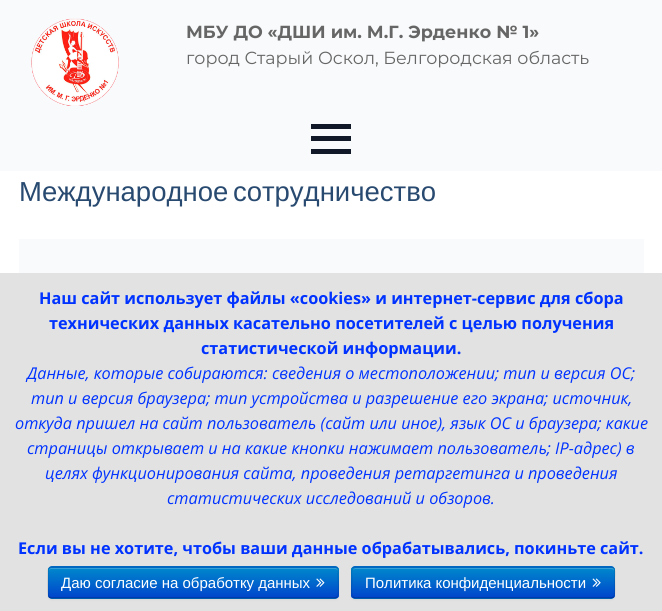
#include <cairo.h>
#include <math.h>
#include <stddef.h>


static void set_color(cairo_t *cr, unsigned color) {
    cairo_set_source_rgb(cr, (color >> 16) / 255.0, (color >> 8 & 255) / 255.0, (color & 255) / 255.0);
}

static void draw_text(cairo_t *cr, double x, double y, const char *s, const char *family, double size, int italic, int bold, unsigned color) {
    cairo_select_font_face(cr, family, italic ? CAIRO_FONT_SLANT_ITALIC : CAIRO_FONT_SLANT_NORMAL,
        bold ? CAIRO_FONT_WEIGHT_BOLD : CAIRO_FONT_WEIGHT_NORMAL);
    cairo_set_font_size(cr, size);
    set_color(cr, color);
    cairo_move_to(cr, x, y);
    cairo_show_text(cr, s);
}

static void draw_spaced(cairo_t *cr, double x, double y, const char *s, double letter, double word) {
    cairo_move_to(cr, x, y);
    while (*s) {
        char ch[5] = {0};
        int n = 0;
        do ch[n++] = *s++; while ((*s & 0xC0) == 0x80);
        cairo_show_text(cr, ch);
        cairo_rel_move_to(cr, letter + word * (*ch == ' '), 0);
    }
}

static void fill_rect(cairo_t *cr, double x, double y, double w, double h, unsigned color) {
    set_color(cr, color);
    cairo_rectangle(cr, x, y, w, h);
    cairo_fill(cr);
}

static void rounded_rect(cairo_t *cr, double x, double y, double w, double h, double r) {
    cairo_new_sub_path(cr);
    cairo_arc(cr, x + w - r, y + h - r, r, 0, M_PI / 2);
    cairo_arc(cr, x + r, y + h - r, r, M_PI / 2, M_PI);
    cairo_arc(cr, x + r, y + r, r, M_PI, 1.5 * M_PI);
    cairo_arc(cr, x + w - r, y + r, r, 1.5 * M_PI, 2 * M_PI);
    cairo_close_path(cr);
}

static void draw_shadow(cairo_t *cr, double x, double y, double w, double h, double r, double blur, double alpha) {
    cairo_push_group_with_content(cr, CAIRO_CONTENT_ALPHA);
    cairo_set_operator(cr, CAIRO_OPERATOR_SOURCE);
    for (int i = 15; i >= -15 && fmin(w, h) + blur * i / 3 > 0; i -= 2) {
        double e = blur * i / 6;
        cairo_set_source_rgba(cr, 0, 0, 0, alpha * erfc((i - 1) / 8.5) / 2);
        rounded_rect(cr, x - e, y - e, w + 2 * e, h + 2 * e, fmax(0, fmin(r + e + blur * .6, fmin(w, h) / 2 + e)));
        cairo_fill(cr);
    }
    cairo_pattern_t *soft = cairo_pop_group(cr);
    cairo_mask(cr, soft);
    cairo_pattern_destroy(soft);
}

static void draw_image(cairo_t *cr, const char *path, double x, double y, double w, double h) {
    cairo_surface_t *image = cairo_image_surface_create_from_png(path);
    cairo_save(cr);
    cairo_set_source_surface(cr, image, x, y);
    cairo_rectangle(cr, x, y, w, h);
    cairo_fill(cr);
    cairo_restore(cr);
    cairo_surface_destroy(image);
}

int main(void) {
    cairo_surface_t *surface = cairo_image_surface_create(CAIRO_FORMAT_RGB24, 662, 611);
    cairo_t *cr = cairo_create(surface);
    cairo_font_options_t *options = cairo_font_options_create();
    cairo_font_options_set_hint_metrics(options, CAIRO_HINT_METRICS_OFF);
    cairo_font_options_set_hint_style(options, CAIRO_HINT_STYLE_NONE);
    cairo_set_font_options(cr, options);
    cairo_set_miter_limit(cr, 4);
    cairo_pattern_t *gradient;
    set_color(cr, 0xFFFFFF);
    cairo_paint(cr);
    fill_rect(cr, 0, 0, 662, 171, 0xF9FAFB);
    draw_image(cr, "assets/img1.png", 31, 18, 88, 88);
    draw_text(cr, 186, 38, "МБУ ДО «ДШИ им. М.Г. Эрденко № 1»", "Montserrat", 17.5, 0, 1, 0x666666);
    draw_text(cr, 186, 64, "город Старый Оскол, Белгородская область", "Montserrat", 17.5, 0, 0, 0x666666);
    fill_rect(cr, 311, 136, 40, 5, 0x111827);
    fill_rect(cr, 311, 124, 40, 5, 0x111827);
    fill_rect(cr, 311, 149, 40, 5, 0x111827);
    cairo_select_font_face(cr, "Liberation Sans", CAIRO_FONT_SLANT_NORMAL, CAIRO_FONT_WEIGHT_NORMAL);
    cairo_set_font_size(cr, 27.5);
    set_color(cr, 0x294A70);
    draw_spaced(cr, 19, 201, "Международное сотрудничество", 0, -3);
    fill_rect(cr, 19, 239, 625, 34, 0xF9FAFB);
    fill_rect(cr, 0, 273, 662, 338, 0xE2E2E2);
    draw_text(cr, 39, 304, "Наш сайт использует файлы «cookies» и интернет-сервис для сбора", "Open Sans", 16.25, 0, 1, 0x0033FF);
    draw_text(cr, 49, 329, "технических данных касательно посетителей с целью получения", "Open Sans", 16.25, 0, 1, 0x0033FF);
    draw_text(cr, 201, 354, "статистической информации.", "Open Sans", 16.25, 0, 1, 0x0033FF);
    draw_text(cr, 27, 379, "Данные, которые собираются: сведения о местоположении; тип и версия ОС;", "Open Sans", 16.25, 1, 0, 0x0033FF);
    draw_text(cr, 31, 404, "тип и версия браузера; тип устройства и разрешение его экрана; источник,", "Open Sans", 16.25, 1, 0, 0x0033FF);
    draw_text(cr, 15, 429, "откуда пришел на сайт пользователь (сайт или иное), язык ОС и браузера; какие", "Open Sans", 16.25, 1, 0, 0x0033FF);
    draw_text(cr, 27, 454, "страницы открывает и на какие кнопки нажимает пользователь; IP-адрес) в", "Open Sans", 16.25, 1, 0, 0x0033FF);
    draw_text(cr, 45, 479, "целях функционирования сайта, проведения ретаргетинга и проведения", "Open Sans", 16.25, 1, 0, 0x0033FF);
    draw_text(cr, 167, 504, "статистических исследований и обзоров.", "Open Sans", 16.25, 1, 0, 0x0033FF);
    draw_text(cr, 18, 554, "Если вы не хотите, чтобы ваши данные обрабатывались, покиньте сайт.", "Open Sans", 16.25, 0, 1, 0x0033FF);
    set_color(cr, 0x000000);
    draw_shadow(cr, 48, 568, 291, 32, 4, 1, 0.05);
    set_color(cr, 0x006DCC);
    rounded_rect(cr, 48, 566, 291, 33, 4);
    cairo_fill(cr);
    cairo_save(cr);
    rounded_rect(cr, 48, 566, 291, 33, 4);
    cairo_clip(cr);
    gradient = cairo_pattern_create_linear(193, 568, 193, 598);
    cairo_pattern_add_color_stop_rgba(gradient, 0, 0, 0.533, 0.8, 1);
    cairo_pattern_add_color_stop_rgba(gradient, 1, 0, 0.267, 0.8, 1);
    cairo_set_source(cr, gradient);
    cairo_pattern_destroy(gradient);
    cairo_rectangle(cr, 48, 568, 291, 30);
    cairo_fill(cr);
    cairo_restore(cr);
    set_color(cr, 0x339FD6);
    cairo_new_path(cr);
    cairo_move_to(cr, 51, 569);
    cairo_line_to(cr, 335, 569);
    cairo_curve_to(cr, 336, 569, 338, 570, 338, 571);
    cairo_line_to(cr, 338, 570);
    cairo_line_to(cr, 336, 568);
    cairo_line_to(cr, 51, 568);
    cairo_curve_to(cr, 49, 569, 49, 570, 49, 571);
    cairo_curve_to(cr, 49, 570, 50, 569, 51, 569);
    cairo_close_path(cr);
    cairo_fill(cr);
    cairo_new_path(cr);
    cairo_move_to(cr, 337, 597);
    cairo_line_to(cr, 335, 598);
    cairo_line_to(cr, 51, 598);
    cairo_line_to(cr, 49, 597);
    cairo_set_source_rgba(cr, 0, 0, 0, 0.25);
    cairo_set_line_width(cr, 1.2);
    cairo_stroke(cr);
    cairo_new_path(cr);
    cairo_move_to(cr, 49, 597);
    cairo_curve_to(cr, 47, 595, 48, 578, 48, 574);
    cairo_curve_to(cr, 48, 572, 47.5, 567, 51, 567);
    cairo_line_to(cr, 335, 567);
    cairo_curve_to(cr, 339, 567, 338, 572, 338, 574);
    cairo_curve_to(cr, 338, 578, 339.5, 595, 337, 597);
    cairo_set_source_rgba(cr, 0, 0, 0, 0.1);
    cairo_stroke(cr);
    draw_text(cr, 61, 588, "Даю согласие на обработку данных", "Liberation Sans", 15, 0, 0, 0xFFFFFF);
    draw_image(cr, "assets/img2.png", 316, 578, 9, 9);
    set_color(cr, 0x000000);
    draw_shadow(cr, 351, 568, 264, 32, 4, 1, 0.05);
    set_color(cr, 0x006DCC);
    rounded_rect(cr, 351, 566, 264, 33, 4);
    cairo_fill(cr);
    cairo_save(cr);
    rounded_rect(cr, 351, 566, 264, 33, 4);
    cairo_clip(cr);
    gradient = cairo_pattern_create_linear(483, 568, 483, 598);
    cairo_pattern_add_color_stop_rgba(gradient, 0, 0, 0.533, 0.8, 1);
    cairo_pattern_add_color_stop_rgba(gradient, 1, 0, 0.267, 0.8, 1);
    cairo_set_source(cr, gradient);
    cairo_pattern_destroy(gradient);
    cairo_rectangle(cr, 351, 568, 264, 30);
    cairo_fill(cr);
    cairo_restore(cr);
    set_color(cr, 0x339FD6);
    cairo_new_path(cr);
    cairo_move_to(cr, 355, 569);
    cairo_line_to(cr, 611, 569);
    cairo_curve_to(cr, 613, 569, 614, 570, 614, 571);
    cairo_line_to(cr, 614, 570);
    cairo_curve_to(cr, 614, 569, 613, 568, 612, 568);
    cairo_line_to(cr, 356, 568);
    cairo_curve_to(cr, 354, 568, 354, 569, 353, 570);
    cairo_close_path(cr);
    cairo_fill(cr);
    cairo_new_path(cr);
    cairo_move_to(cr, 613.5, 597);
    cairo_line_to(cr, 611, 598);
    cairo_line_to(cr, 355, 598);
    cairo_line_to(cr, 353, 597);
    cairo_set_source_rgba(cr, 0, 0, 0, 0.25);
    cairo_stroke(cr);
    cairo_new_path(cr);
    cairo_move_to(cr, 353, 597);
    cairo_curve_to(cr, 350.5, 595, 352, 581.5, 352, 578.5);
    cairo_curve_to(cr, 352, 576, 350, 567, 355, 567);
    cairo_line_to(cr, 611, 567);
    cairo_curve_to(cr, 616.5, 567, 614.5, 576, 614.5, 578.5);
    cairo_curve_to(cr, 614.5, 581.5, 615.5, 595, 613.5, 597);
    cairo_set_source_rgba(cr, 0, 0, 0, 0.1);
    cairo_stroke(cr);
    draw_text(cr, 365, 588, "Политика конфиденциальности", "Liberation Sans", 15, 0, 0, 0xFFFFFF);
    draw_image(cr, "assets/img3.png", 592, 578, 9, 9);
    cairo_surface_write_to_png(surface, "output.png");
    cairo_font_options_destroy(options);
    cairo_destroy(cr);
    cairo_surface_destroy(surface);
    return 0;
}
